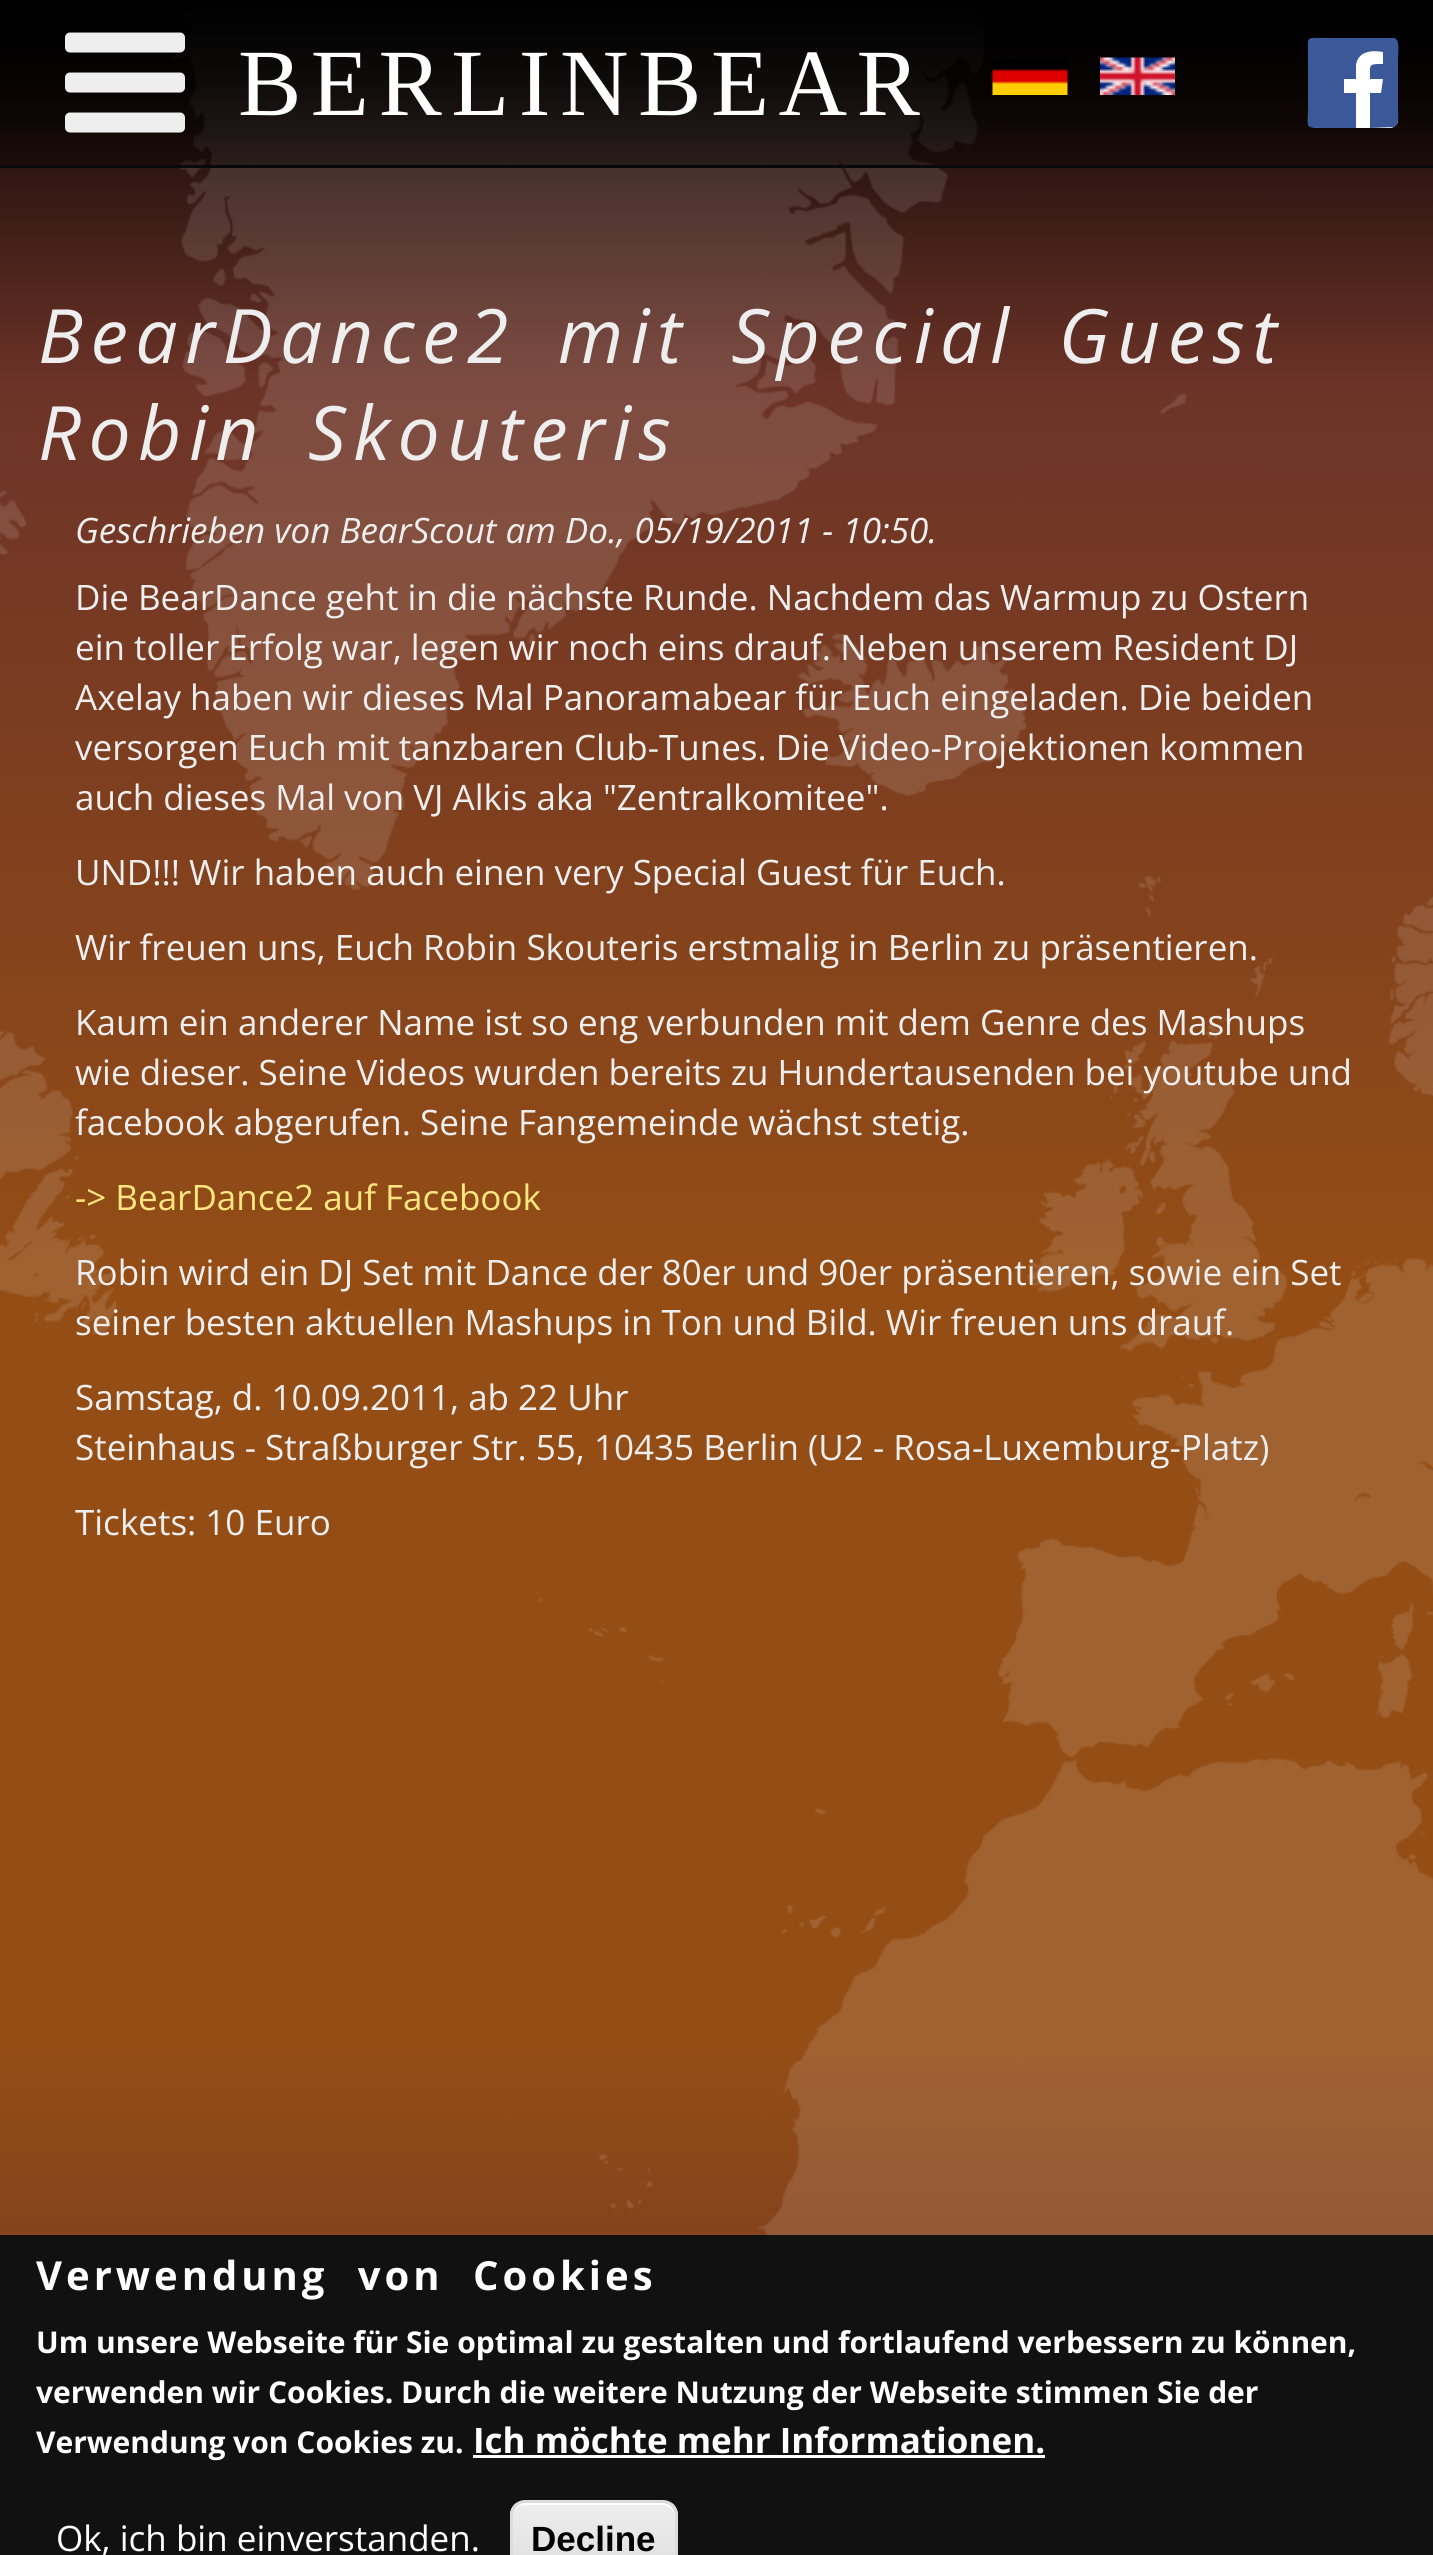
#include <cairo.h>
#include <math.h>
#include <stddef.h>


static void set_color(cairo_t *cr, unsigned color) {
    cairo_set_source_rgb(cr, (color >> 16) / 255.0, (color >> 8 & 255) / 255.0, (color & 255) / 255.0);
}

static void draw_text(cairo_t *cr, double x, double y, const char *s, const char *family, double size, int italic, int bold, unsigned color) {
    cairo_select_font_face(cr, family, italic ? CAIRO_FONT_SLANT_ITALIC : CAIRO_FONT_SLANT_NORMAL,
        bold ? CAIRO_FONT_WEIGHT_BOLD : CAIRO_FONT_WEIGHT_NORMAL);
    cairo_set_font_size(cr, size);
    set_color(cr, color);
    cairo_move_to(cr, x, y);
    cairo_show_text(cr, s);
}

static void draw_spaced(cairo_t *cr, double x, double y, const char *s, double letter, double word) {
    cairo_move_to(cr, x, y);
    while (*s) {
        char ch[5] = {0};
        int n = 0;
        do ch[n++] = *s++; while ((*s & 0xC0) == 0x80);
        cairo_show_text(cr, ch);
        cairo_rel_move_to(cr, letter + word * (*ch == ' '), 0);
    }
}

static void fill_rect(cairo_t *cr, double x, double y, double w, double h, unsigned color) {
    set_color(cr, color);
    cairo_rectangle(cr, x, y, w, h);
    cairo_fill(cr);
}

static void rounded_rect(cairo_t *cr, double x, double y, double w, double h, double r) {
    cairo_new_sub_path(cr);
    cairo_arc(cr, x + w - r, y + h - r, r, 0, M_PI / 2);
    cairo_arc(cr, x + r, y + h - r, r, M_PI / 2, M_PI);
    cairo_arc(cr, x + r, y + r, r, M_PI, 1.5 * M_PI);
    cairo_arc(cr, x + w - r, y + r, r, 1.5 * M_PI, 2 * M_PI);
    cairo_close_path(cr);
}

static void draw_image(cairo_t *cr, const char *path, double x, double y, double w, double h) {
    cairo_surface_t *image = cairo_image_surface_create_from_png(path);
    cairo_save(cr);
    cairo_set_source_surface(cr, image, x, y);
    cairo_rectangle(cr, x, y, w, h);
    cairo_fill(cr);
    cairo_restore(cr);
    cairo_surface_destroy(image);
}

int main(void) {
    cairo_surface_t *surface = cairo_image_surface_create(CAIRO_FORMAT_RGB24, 1433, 2555);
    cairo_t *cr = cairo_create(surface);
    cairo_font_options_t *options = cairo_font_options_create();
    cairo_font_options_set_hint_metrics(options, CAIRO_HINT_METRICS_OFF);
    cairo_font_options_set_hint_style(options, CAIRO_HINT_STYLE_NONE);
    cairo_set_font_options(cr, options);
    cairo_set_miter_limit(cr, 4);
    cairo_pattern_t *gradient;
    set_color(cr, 0xFFFFFF);
    cairo_paint(cr);
    draw_image(cr, "assets/img1.png", 0, 0, 1433, 2235);
    fill_rect(cr, 0, 165, 1433, 3, 0x090909);
    draw_image(cr, "assets/img2.png", 65, 32, 120, 101);
    cairo_select_font_face(cr, "Liberation Serif", CAIRO_FONT_SLANT_NORMAL, CAIRO_FONT_WEIGHT_NORMAL);
    cairo_set_font_size(cr, 95);
    set_color(cr, 0xFFFFFF);
    draw_spaced(cr, 238, 115, "BERLINBEAR", 9.5, 0);
    draw_image(cr, "assets/img3.png", 992, 58, 76, 37);
    draw_image(cr, "assets/img4.png", 1100, 57, 75, 38);
    rounded_rect(cr, 1310, 38, 88, 90, 8);
    cairo_fill(cr);
    set_color(cr, 0x3B5998);
    cairo_new_path(cr);
    cairo_move_to(cr, 1393, 38);
    cairo_curve_to(cr, 1394, 38, 1395, 38, 1396, 39);
    cairo_curve_to(cr, 1400, 43, 1398, 55, 1398, 56);
    cairo_line_to(cr, 1398, 109);
    cairo_curve_to(cr, 1398, 111, 1400, 125, 1394, 127);
    cairo_line_to(cr, 1370, 128);
    cairo_line_to(cr, 1370, 93);
    cairo_line_to(cr, 1381, 93);
    cairo_line_to(cr, 1383, 79);
    cairo_line_to(cr, 1370, 79);
    cairo_curve_to(cr, 1370, 64, 1368, 64, 1383, 64);
    cairo_line_to(cr, 1383, 52);
    cairo_curve_to(cr, 1372, 50, 1358, 51, 1356, 65);
    cairo_line_to(cr, 1356, 79);
    cairo_line_to(cr, 1344, 79);
    cairo_line_to(cr, 1344, 93);
    cairo_line_to(cr, 1356, 93);
    cairo_line_to(cr, 1356, 128);
    cairo_line_to(cr, 1320, 128);
    cairo_curve_to(cr, 1304, 128, 1308, 126, 1308, 109);
    cairo_line_to(cr, 1308, 56);
    cairo_curve_to(cr, 1308, 35, 1305, 38, 1326, 38);
    cairo_close_path(cr);
    cairo_fill(cr);
    cairo_select_font_face(cr, "Open Sans", CAIRO_FONT_SLANT_ITALIC, CAIRO_FONT_WEIGHT_NORMAL);
    cairo_set_font_size(cr, 75);
    set_color(cr, 0xEEEEEE);
    draw_spaced(cr, 38, 363, "BearDance2 mit Special Guest", 7.5, 15);
    draw_spaced(cr, 38, 460, "Robin Skouteris", 7.5, 15);
    draw_text(cr, 75, 543, "Geschrieben von BearScout am Do., 05/19/2011 - 10:50.", "Open Sans", 35, 1, 0, 0xEEEEEE);
    draw_text(cr, 75, 610, "Die BearDance geht in die nächste Runde. Nachdem das Warmup zu Ostern", "Open Sans", 35, 0, 0, 0xEEEEEE);
    draw_text(cr, 75, 660, "ein toller Erfolg war, legen wir noch eins drauf. Neben unserem Resident DJ", "Open Sans", 35, 0, 0, 0xEEEEEE);
    draw_text(cr, 75, 710, "Axelay haben wir dieses Mal Panoramabear für Euch eingeladen. Die beiden", "Open Sans", 35, 0, 0, 0xEEEEEE);
    draw_text(cr, 75, 760, "versorgen Euch mit tanzbaren Club-Tunes. Die Video-Projektionen kommen", "Open Sans", 35, 0, 0, 0xEEEEEE);
    draw_text(cr, 75, 810, "auch dieses Mal von VJ Alkis aka \"Zentralkomitee\".", "Open Sans", 35, 0, 0, 0xEEEEEE);
    draw_text(cr, 75, 885, "UND!!! Wir haben auch einen very Special Guest für Euch.", "Open Sans", 35, 0, 0, 0xEEEEEE);
    draw_text(cr, 75, 960, "Wir freuen uns, Euch Robin Skouteris erstmalig in Berlin zu präsentieren.", "Open Sans", 35, 0, 0, 0xEEEEEE);
    draw_text(cr, 75, 1035, "Kaum ein anderer Name ist so eng verbunden mit dem Genre des Mashups", "Open Sans", 35, 0, 0, 0xEEEEEE);
    draw_text(cr, 75, 1085, "wie dieser. Seine Videos wurden bereits zu Hundertausenden bei youtube und", "Open Sans", 35, 0, 0, 0xEEEEEE);
    draw_text(cr, 75, 1135, "facebook abgerufen. Seine Fangemeinde wächst stetig.", "Open Sans", 35, 0, 0, 0xEEEEEE);
    draw_text(cr, 75, 1210, "-> BearDance2 auf Facebook", "Open Sans", 35, 0, 0, 0xFEE781);
    draw_text(cr, 75, 1285, "Robin wird ein DJ Set mit Dance der 80er und 90er präsentieren, sowie ein Set", "Open Sans", 35, 0, 0, 0xEEEEEE);
    draw_text(cr, 75, 1335, "seiner besten aktuellen Mashups in Ton und Bild. Wir freuen uns drauf.", "Open Sans", 35, 0, 0, 0xEEEEEE);
    draw_text(cr, 75, 1410, "Samstag, d. 10.09.2011, ab 22 Uhr", "Open Sans", 35, 0, 0, 0xEEEEEE);
    draw_text(cr, 75, 1460, "Steinhaus - Straßburger Str. 55, 10435 Berlin (U2 - Rosa-Luxemburg-Platz)", "Open Sans", 35, 0, 0, 0xEEEEEE);
    draw_text(cr, 75, 1535, "Tickets: 10 Euro", "Open Sans", 35, 0, 0, 0xEEEEEE);
    fill_rect(cr, 0, 2235, 1433, 320, 0x111111);
    cairo_select_font_face(cr, "Open Sans", CAIRO_FONT_SLANT_NORMAL, CAIRO_FONT_WEIGHT_BOLD);
    cairo_set_font_size(cr, 40);
    set_color(cr, 0xFFFFFF);
    draw_spaced(cr, 36, 2290, "Verwendung von Cookies", 4, 15);
    draw_text(cr, 36, 2353, "Um unsere Webseite für Sie optimal zu gestalten und fortlaufend verbessern zu können,", "Open Sans", 30, 0, 1, 0xFFFFFF);
    draw_text(cr, 36, 2403, "verwenden wir Cookies. Durch die weitere Nutzung der Webseite stimmen Sie der", "Open Sans", 30, 0, 1, 0xFFFFFF);
    draw_text(cr, 36, 2453, "Verwendung von Cookies zu.", "Open Sans", 30, 0, 1, 0xFFFFFF);
    draw_text(cr, 473, 2453, "Ich möchte mehr Informationen.", "Open Sans", 35, 0, 1, 0xFFFFFF);
    fill_rect(cr, 473, 2455, 572, 3, 0xFFFFFF);
    draw_text(cr, 56, 2551, "Ok, ich bin einverstanden.", "Open Sans", 35, 0, 0, 0xFFFFFF);
    cairo_save(cr);
    rounded_rect(cr, 510, 2500, 168, 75, 15);
    cairo_clip(cr);
    gradient = cairo_pattern_create_linear(594, 2503, 594, 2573);
    cairo_pattern_add_color_stop_rgba(gradient, 0.05, 0.929, 0.929, 0.929, 1);
    cairo_pattern_add_color_stop_rgba(gradient, 1, 0.875, 0.875, 0.875, 1);
    cairo_set_source(cr, gradient);
    cairo_pattern_destroy(gradient);
    cairo_rectangle(cr, 510, 2503, 168, 52);
    cairo_fill(cr);
    cairo_restore(cr);
    cairo_new_path(cr);
    cairo_move_to(cr, 525, 2505);
    cairo_line_to(cr, 662, 2505);
    cairo_curve_to(cr, 669, 2505, 675, 2511, 675, 2518);
    cairo_line_to(cr, 675, 2516);
    cairo_curve_to(cr, 675, 2509, 669, 2503, 662, 2503);
    cairo_line_to(cr, 526, 2503);
    cairo_curve_to(cr, 520, 2503, 516, 2507, 514, 2512);
    cairo_curve_to(cr, 516, 2508, 520, 2505, 525, 2505);
    cairo_close_path(cr);
    cairo_fill(cr);
    rounded_rect(cr, 511.5, 2501.5, 165, 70, 13.5);
    set_color(cr, 0xDCDCDC);
    cairo_set_line_width(cr, 3);
    cairo_stroke(cr);
    draw_text(cr, 531, 2551, "Decline", "Liberation Sans", 35, 0, 1, 0x000000);
    cairo_surface_write_to_png(surface, "output.png");
    cairo_font_options_destroy(options);
    cairo_destroy(cr);
    cairo_surface_destroy(surface);
    return 0;
}
